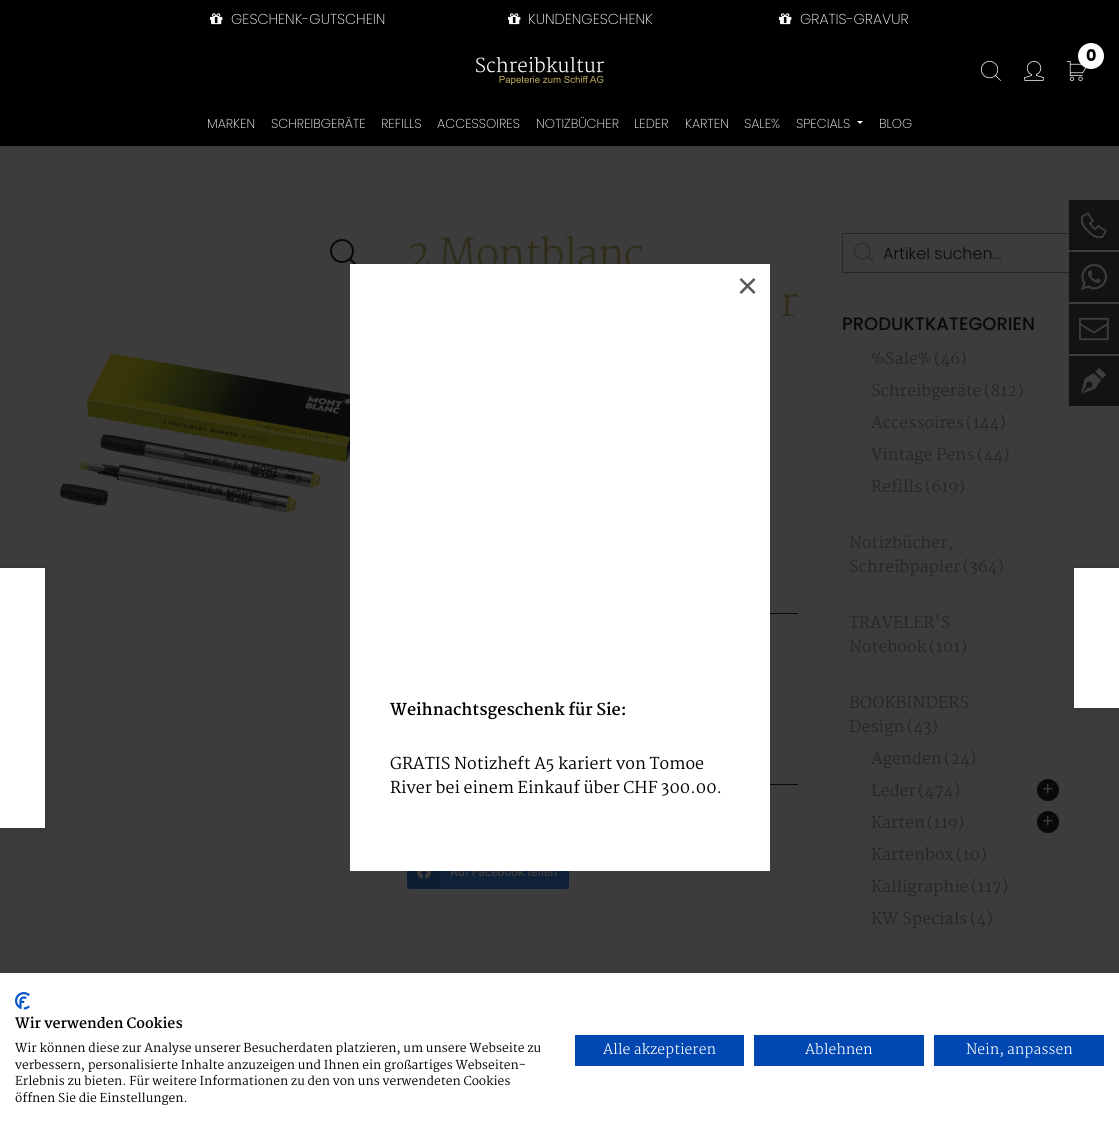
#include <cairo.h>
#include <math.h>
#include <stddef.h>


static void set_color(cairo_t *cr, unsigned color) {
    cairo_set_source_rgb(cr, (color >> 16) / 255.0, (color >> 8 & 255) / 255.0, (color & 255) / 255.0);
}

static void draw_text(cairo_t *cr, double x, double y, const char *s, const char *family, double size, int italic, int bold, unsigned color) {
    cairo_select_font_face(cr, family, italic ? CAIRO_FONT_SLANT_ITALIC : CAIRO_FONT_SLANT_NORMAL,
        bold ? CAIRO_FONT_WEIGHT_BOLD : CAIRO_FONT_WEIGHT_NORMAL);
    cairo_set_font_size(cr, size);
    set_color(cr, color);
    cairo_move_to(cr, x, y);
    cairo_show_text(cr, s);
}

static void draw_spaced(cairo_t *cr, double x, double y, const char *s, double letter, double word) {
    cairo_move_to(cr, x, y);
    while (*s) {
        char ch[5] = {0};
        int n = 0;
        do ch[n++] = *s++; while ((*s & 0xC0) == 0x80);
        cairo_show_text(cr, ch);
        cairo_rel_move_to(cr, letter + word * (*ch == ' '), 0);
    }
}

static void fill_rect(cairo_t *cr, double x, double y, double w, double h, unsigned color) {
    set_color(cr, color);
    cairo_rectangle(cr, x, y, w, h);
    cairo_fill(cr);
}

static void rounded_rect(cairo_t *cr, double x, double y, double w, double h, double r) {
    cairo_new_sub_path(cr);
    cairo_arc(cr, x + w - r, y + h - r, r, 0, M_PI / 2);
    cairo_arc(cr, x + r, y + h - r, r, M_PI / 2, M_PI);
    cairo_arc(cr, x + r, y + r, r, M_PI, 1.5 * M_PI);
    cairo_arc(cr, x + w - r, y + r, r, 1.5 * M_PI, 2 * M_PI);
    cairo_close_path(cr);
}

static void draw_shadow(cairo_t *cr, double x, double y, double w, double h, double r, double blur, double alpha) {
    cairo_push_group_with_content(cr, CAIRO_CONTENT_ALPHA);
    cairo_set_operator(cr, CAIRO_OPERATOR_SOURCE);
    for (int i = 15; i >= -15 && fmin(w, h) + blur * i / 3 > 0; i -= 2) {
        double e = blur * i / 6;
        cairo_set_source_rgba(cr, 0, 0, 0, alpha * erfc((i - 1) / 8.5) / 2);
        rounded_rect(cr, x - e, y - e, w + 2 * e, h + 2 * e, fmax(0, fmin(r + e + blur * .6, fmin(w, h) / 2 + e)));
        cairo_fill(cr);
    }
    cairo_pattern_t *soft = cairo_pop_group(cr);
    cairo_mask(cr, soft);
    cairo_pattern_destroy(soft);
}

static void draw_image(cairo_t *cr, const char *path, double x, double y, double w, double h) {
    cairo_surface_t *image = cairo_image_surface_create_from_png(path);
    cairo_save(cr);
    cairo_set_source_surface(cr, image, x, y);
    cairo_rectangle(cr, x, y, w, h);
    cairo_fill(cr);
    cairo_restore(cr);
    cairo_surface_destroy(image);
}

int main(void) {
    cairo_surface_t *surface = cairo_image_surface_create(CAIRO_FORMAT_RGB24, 1119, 1135);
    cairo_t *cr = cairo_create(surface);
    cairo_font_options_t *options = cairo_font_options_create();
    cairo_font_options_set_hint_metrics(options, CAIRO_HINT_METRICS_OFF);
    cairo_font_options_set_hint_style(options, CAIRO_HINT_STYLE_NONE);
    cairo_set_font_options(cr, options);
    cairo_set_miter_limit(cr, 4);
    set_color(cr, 0x3C3C3C);
    cairo_paint(cr);
    fill_rect(cr, 0, 0, 1119, 146, 0x000000);
    draw_image(cr, "assets/img1.png", 210, 13, 13, 12);
    draw_text(cr, 231, 24, "GESCHENK-GUTSCHEIN", "Poppins ExtraLight", 14.4, 0, 0, 0xFFFFFF);
    draw_image(cr, "assets/img1.png", 508, 13, 13, 12);
    draw_text(cr, 528, 24, "KUNDENGESCHENK", "Poppins ExtraLight", 14.4, 0, 0, 0xFFFFFF);
    draw_image(cr, "assets/img1.png", 779, 13, 13, 12);
    draw_text(cr, 800, 24, "GRATIS-GRAVUR", "Poppins ExtraLight", 14.4, 0, 0, 0xFFFFFF);
    draw_image(cr, "assets/img2.png", 1067, 61, 19, 20);
    cairo_arc(cr, 1091, 56, 13, 0, 2 * M_PI);
    cairo_fill(cr);
    draw_text(cr, 1086, 61, "0", "Poppins", 16, 0, 1, 0x000000);
    draw_image(cr, "assets/img3.png", 981, 61, 20, 20);
    draw_image(cr, "assets/img4.png", 1024, 61, 20, 20);
    draw_image(cr, "assets/img5.png", 476, 57, 128, 28);
    draw_text(cr, 207, 128, "MARKEN", "Poppins ExtraLight", 13, 0, 0, 0xFFFFFF);
    draw_text(cr, 271, 128, "SCHREIBGERÄTE", "Poppins ExtraLight", 13, 0, 0, 0xFFFFFF);
    draw_text(cr, 381, 128, "REFILLS", "Poppins ExtraLight", 13, 0, 0, 0xFFFFFF);
    draw_text(cr, 437, 128, "ACCESSOIRES", "Poppins ExtraLight", 13, 0, 0, 0xFFFFFF);
    draw_text(cr, 536, 128, "NOTIZBÜCHER", "Poppins ExtraLight", 13, 0, 0, 0xFFFFFF);
    draw_text(cr, 634, 128, "LEDER", "Poppins ExtraLight", 13, 0, 0, 0xFFFFFF);
    draw_text(cr, 685, 128, "KARTEN", "Poppins ExtraLight", 13, 0, 0, 0xFFFFFF);
    draw_text(cr, 744, 128, "SALE%", "Poppins ExtraLight", 13, 0, 0, 0xFFFFFF);
    draw_text(cr, 796, 128, "SPECIALS", "Poppins ExtraLight", 13, 0, 0, 0xFFFFFF);
    cairo_new_path(cr);
    cairo_move_to(cr, 857, 121);
    cairo_line_to(cr, 863, 121);
    cairo_line_to(cr, 860, 124);
    cairo_close_path(cr);
    cairo_fill(cr);
    draw_text(cr, 879, 128, "BLOG", "Poppins ExtraLight", 13, 0, 0, 0xFFFFFF);
    draw_image(cr, "assets/img6.png", 330, 239, 27, 25);
    draw_image(cr, "assets/img7.png", 60, 353, 290, 160);
    cairo_select_font_face(cr, "Martel Light", CAIRO_FONT_SLANT_NORMAL, CAIRO_FONT_WEIGHT_NORMAL);
    cairo_set_font_size(cr, 40);
    set_color(cr, 0x302C1A);
    draw_spaced(cr, 407, 268, "2 Montblanc", -1, 0);
    draw_spaced(cr, 780, 316, "r", -1, 0);
    fill_rect(cr, 770, 613, 28, 1, 0x090909);
    fill_rect(cr, 770, 784, 28, 1, 0x090909);
    set_color(cr, 0x0E2139);
    rounded_rect(cr, 407, 855, 162, 34, 3);
    cairo_fill(cr);
    rounded_rect(cr, 407.5, 855.5, 161, 33, 2.5);
    cairo_set_source_rgba(cr, 0.035, 0.035, 0.035, 0.1);
    cairo_set_line_width(cr, 1);
    cairo_stroke(cr);
    cairo_new_path(cr);
    cairo_move_to(cr, 410, 856);
    cairo_line_to(cr, 440, 856);
    cairo_line_to(cr, 440, 888);
    cairo_line_to(cr, 410, 888);
    cairo_curve_to(cr, 409, 888, 408, 887, 408, 886);
    cairo_line_to(cr, 408, 858);
    cairo_curve_to(cr, 408, 857, 409, 856, 410, 856);
    cairo_close_path(cr);
    cairo_fill(cr);
    draw_image(cr, "assets/img8.png", 417, 871, 14, 8);
    draw_text(cr, 450, 876, "Auf Facebook teilen", "Roboto Medium", 12, 0, 0, 0x3C3C3C);
    set_color(cr, 0x000000);
    draw_shadow(cr, -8, 568, 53, 260, 0, 2.5, 0.2);
    fill_rect(cr, 0, 568, 45, 260, 0xFFFFFF);
    set_color(cr, 0x000000);
    draw_shadow(cr, 1074, 568, 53, 140, 0, 2.5, 0.2);
    fill_rect(cr, 1074, 568, 45, 140, 0xFFFFFF);
    cairo_rectangle(cr, 842.5, 233.5, 229, 39);
    set_color(cr, 0x262625);
    cairo_stroke(cr);
    draw_image(cr, "assets/img9.png", 854, 243, 20, 20);
    draw_text(cr, 883, 259, "Artikel suchen...", "Poppins Light", 16, 0, 0, 0x090909);
    draw_text(cr, 842, 330, "PRODUKTKATEGORIEN", "Poppins Medium", 18, 0, 0, 0x090909);
    draw_text(cr, 871, 364, "%Sale%", "Martel", 16, 0, 0, 0x262625);
    draw_text(cr, 934, 364, "(46)", "Martel", 16, 0, 0, 0x262625);
    draw_text(cr, 871, 396, "Schreibgeräte", "Martel", 16, 0, 0, 0x262625);
    draw_text(cr, 984, 396, "(812)", "Martel", 16, 0, 0, 0x262625);
    draw_text(cr, 871, 428, "Accessoires", "Martel", 16, 0, 0, 0x262625);
    draw_text(cr, 966, 428, "(144)", "Martel", 16, 0, 0, 0x262625);
    draw_text(cr, 871, 460, "Vintage Pens", "Martel", 16, 0, 0, 0x262625);
    draw_text(cr, 977, 460, "(44)", "Martel", 16, 0, 0, 0x262625);
    draw_text(cr, 871, 492, "Refills", "Martel", 16, 0, 0, 0x262625);
    draw_text(cr, 925, 492, "(619)", "Martel", 16, 0, 0, 0x262625);
    draw_text(cr, 849, 548, "Notizbücher,", "Martel", 16, 0, 0, 0x262625);
    draw_text(cr, 849, 572, "Schreibpapier", "Martel", 16, 0, 0, 0x262625);
    draw_text(cr, 963, 572, "(364)", "Martel", 16, 0, 0, 0x262625);
    draw_text(cr, 849, 628, "TRAVELER'S", "Martel", 16, 0, 0, 0x262625);
    draw_text(cr, 849, 652, "Notebook", "Martel", 16, 0, 0, 0x262625);
    draw_text(cr, 929, 652, "(101)", "Martel", 16, 0, 0, 0x262625);
    draw_text(cr, 849, 708, "BOOKBINDERS", "Martel", 16, 0, 0, 0x262625);
    draw_text(cr, 849, 732, "Design", "Martel", 16, 0, 0, 0x262625);
    draw_text(cr, 907, 732, "(43)", "Martel", 16, 0, 0, 0x262625);
    draw_text(cr, 871, 764, "Agenden", "Martel", 16, 0, 0, 0x262625);
    draw_text(cr, 944, 764, "(24)", "Martel", 16, 0, 0, 0x262625);
    draw_text(cr, 871, 796, "Leder", "Martel", 16, 0, 0, 0x262625);
    draw_text(cr, 918, 796, "(474)", "Martel", 16, 0, 0, 0x262625);
    set_color(cr, 0x090909);
    cairo_new_path(cr);
    cairo_arc(cr, 1048, 790, 11, 0, 2 * M_PI);
    cairo_fill(cr);
    draw_text(cr, 1042, 795, "+", "Liberation Mono", 19, 0, 0, 0x3C3C3C);
    draw_text(cr, 871, 828, "Karten", "Martel", 16, 0, 0, 0x262625);
    draw_text(cr, 927, 828, "(119)", "Martel", 16, 0, 0, 0x262625);
    set_color(cr, 0x090909);
    cairo_new_path(cr);
    cairo_arc(cr, 1048, 822, 11, 0, 2 * M_PI);
    cairo_fill(cr);
    draw_text(cr, 1042, 827, "+", "Liberation Mono", 19, 0, 0, 0x3C3C3C);
    draw_text(cr, 871, 860, "Kartenbox", "Martel", 16, 0, 0, 0x262625);
    draw_text(cr, 956, 860, "(10)", "Martel", 16, 0, 0, 0x262625);
    draw_text(cr, 871, 892, "Kalligraphie", "Martel", 16, 0, 0, 0x262625);
    draw_text(cr, 971, 892, "(117)", "Martel", 16, 0, 0, 0x262625);
    draw_text(cr, 871, 924, "KW Specials", "Martel", 16, 0, 0, 0x262625);
    draw_text(cr, 970, 924, "(4)", "Martel", 16, 0, 0, 0x262625);
    fill_rect(cr, 350, 264, 420, 607, 0xFFFFFF);
    draw_text(cr, 737, 298, "×", "Liberation Sans", 36, 0, 0, 0x595959);
    draw_text(cr, 390, 715, "Weihnachtsgeschenk für Sie:", "Martel", 16, 0, 1, 0x000000);
    draw_text(cr, 390, 769, "GRATIS Notizheft A5 kariert von Tomoe", "Martel", 16, 0, 0, 0x000000);
    draw_text(cr, 390, 793, "River bei einem Einkauf über CHF 300.00.", "Martel", 16, 0, 0, 0x000000);
    cairo_set_source_rgba(cr, 0.035, 0.035, 0.035, 0.8);
    cairo_rectangle(cr, 1069, 200, 50, 50);
    cairo_fill(cr);
    draw_image(cr, "assets/img10.png", 1081, 212, 26, 26);
    cairo_rectangle(cr, 1069, 252, 50, 50);
    cairo_fill(cr);
    draw_image(cr, "assets/img11.png", 1081, 264, 26, 26);
    fill_rect(cr, 1069, 304, 50, 50, 0x131313);
    draw_image(cr, "assets/img12.png", 1079, 317, 30, 24);
    fill_rect(cr, 1069, 356, 50, 50, 0x131313);
    draw_image(cr, "assets/img13.png", 1081, 368, 26, 26);
    fill_rect(cr, 0, 973, 1119, 162, 0xFFFFFF);
    draw_image(cr, "assets/img14.png", 15, 992, 15, 18);
    draw_text(cr, 15, 1028, "Wir verwenden Cookies", "Martel", 14, 0, 1, 0x000000);
    draw_text(cr, 15, 1052, "Wir können diese zur Analyse unserer Besucherdaten platzieren, um unsere Webseite zu", "Martel", 12, 0, 0, 0x000000);
    draw_text(cr, 15, 1069, "verbessern, personalisierte Inhalte anzuzeigen und Ihnen ein großartiges Webseiten-", "Martel", 12, 0, 0, 0x000000);
    draw_text(cr, 15, 1085, "Erlebnis zu bieten. Für weitere Informationen zu den von uns verwendeten Cookies", "Martel", 12, 0, 0, 0x000000);
    draw_text(cr, 15, 1102, "öffnen Sie die Einstellungen.", "Martel", 12, 0, 0, 0x000000);
    fill_rect(cr, 575, 1035, 169, 31, 0x0047B2);
    draw_text(cr, 603, 1054, "Alle akzeptieren", "Martel Light", 14, 0, 0, 0xFFFFFF);
    fill_rect(cr, 754, 1035, 170, 31, 0x0047B2);
    draw_text(cr, 805, 1054, "Ablehnen", "Martel Light", 14, 0, 0, 0xFFFFFF);
    fill_rect(cr, 934, 1035, 170, 31, 0x0047B2);
    draw_text(cr, 966, 1054, "Nein, anpassen", "Martel Light", 14, 0, 0, 0xFFFFFF);
    cairo_surface_write_to_png(surface, "output.png");
    cairo_font_options_destroy(options);
    cairo_destroy(cr);
    cairo_surface_destroy(surface);
    return 0;
}
